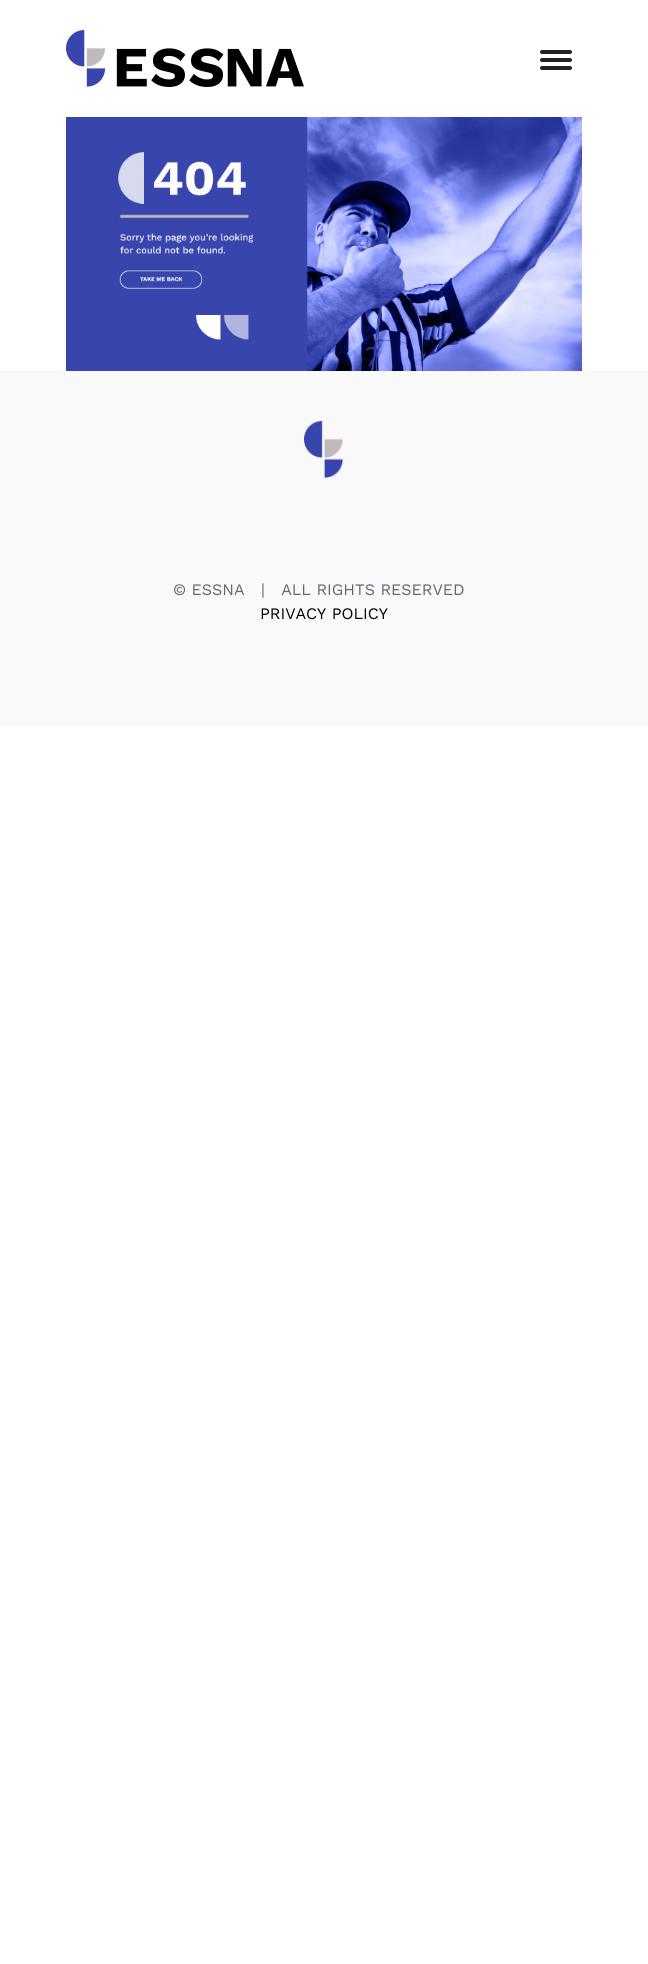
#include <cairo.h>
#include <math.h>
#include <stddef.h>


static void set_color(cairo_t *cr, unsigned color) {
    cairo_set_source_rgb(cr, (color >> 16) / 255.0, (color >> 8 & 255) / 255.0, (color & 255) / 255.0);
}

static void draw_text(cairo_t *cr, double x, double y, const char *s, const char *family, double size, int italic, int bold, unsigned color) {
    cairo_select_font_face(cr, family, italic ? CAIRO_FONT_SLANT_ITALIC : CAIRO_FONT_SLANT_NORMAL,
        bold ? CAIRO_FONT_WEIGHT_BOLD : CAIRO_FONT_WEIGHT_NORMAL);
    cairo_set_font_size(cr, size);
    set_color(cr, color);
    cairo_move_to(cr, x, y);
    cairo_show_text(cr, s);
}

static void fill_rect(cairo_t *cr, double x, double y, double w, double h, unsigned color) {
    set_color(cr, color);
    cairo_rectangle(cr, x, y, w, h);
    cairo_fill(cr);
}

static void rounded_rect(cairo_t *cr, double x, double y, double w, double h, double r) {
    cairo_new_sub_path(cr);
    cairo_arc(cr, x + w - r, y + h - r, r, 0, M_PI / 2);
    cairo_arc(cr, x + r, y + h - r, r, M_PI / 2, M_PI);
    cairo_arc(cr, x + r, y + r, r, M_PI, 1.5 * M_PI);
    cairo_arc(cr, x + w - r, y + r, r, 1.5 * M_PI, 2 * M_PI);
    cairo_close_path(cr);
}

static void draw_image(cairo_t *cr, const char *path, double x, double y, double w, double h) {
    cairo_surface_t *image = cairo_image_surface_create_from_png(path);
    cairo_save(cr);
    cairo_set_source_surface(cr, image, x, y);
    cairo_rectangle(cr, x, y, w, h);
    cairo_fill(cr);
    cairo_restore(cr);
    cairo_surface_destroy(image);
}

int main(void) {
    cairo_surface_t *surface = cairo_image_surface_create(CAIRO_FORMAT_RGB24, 648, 1964);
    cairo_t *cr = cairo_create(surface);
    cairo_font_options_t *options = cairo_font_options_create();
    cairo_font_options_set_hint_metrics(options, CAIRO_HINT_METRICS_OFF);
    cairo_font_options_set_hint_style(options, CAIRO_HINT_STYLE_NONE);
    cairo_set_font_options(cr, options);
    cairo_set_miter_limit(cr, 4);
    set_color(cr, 0xFFFFFF);
    cairo_paint(cr);
    draw_image(cr, "assets/img1.png", 66, 30, 238, 57);
    set_color(cr, 0x222222);
    rounded_rect(cr, 540, 50, 32, 4, 2);
    cairo_fill(cr);
    rounded_rect(cr, 540, 58, 32, 4, 2);
    cairo_fill(cr);
    rounded_rect(cr, 540, 66, 32, 4, 2);
    cairo_fill(cr);
    draw_image(cr, "assets/img2.png", 66, 117, 516, 254);
    fill_rect(cr, 0, 371, 648, 355, 0xF9F9F9);
    draw_image(cr, "assets/img3.png", 304, 421, 40, 57);
    draw_text(cr, 173, 595, "© ESSNA   |   ALL RIGHTS RESERVED", "Work Sans", 16, 0, 0, 0x666276);
    draw_text(cr, 260, 619, "PRIVACY POLICY", "Work Sans", 16, 0, 0, 0x000000);
    cairo_surface_write_to_png(surface, "output.png");
    cairo_font_options_destroy(options);
    cairo_destroy(cr);
    cairo_surface_destroy(surface);
    return 0;
}
